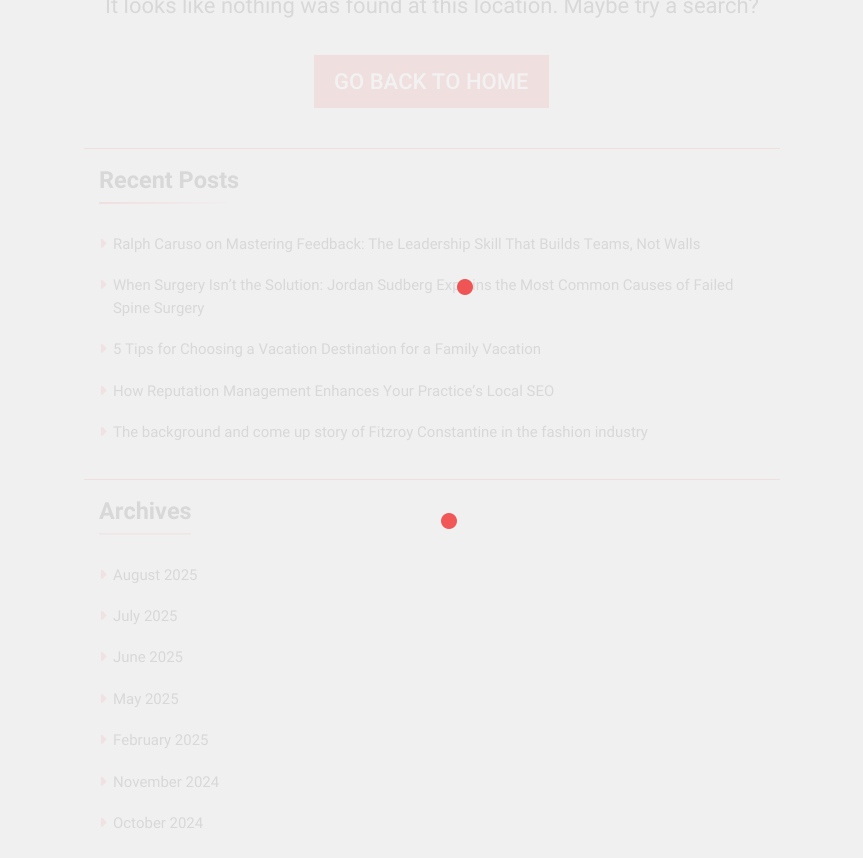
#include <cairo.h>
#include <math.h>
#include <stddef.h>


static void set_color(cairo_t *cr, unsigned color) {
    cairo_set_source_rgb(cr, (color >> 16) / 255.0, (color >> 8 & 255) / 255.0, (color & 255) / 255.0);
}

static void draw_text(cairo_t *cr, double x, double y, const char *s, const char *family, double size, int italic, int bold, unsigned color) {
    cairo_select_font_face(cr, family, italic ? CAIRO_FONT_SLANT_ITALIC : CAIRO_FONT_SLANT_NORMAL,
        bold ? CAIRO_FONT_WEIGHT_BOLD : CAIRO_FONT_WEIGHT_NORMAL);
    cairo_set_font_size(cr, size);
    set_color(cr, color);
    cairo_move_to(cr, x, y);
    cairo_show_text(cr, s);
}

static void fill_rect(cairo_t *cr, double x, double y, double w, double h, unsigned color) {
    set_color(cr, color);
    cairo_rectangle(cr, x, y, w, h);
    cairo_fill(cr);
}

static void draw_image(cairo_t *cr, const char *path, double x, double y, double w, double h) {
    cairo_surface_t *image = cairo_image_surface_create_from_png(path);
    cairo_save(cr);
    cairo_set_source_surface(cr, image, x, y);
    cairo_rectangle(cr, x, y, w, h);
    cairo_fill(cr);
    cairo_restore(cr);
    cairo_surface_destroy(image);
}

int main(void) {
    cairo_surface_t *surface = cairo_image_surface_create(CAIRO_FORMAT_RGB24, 863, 858);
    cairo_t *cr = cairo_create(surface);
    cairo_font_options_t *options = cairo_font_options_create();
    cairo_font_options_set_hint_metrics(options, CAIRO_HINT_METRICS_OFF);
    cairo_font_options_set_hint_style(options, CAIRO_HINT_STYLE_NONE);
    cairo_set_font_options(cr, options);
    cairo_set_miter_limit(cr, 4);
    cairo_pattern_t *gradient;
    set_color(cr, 0xF0F0F0);
    cairo_paint(cr);
    draw_text(cr, 105, 13, "It looks like nothing was found at this location. Maybe try a search?", "Roboto", 22, 0, 0, 0xD8D8D8);
    fill_rect(cr, 314, 55, 235, 53, 0xF0DFDF);
    draw_text(cr, 334, 89, "GO BACK TO HOME", "Roboto Medium", 22, 0, 0, 0xF2F2F2);
    fill_rect(cr, 84, 148, 696, 1, 0xF0DFDF);
    draw_text(cr, 99, 188, "Recent Posts", "Roboto", 23.5, 0, 1, 0xD8D8D8);
    gradient = cairo_pattern_create_linear(168, 197, 169, 209);
    cairo_pattern_add_color_stop_rgba(gradient, 0, 0.941, 0.875, 0.875, 1);
    cairo_pattern_add_color_stop_rgba(gradient, 1, 0.941, 0.941, 0.941, 1);
    cairo_set_source(cr, gradient);
    cairo_pattern_destroy(gradient);
    cairo_rectangle(cr, 99, 202, 127, 2);
    cairo_fill(cr);
    draw_image(cr, "assets/img1.png", 100, 238, 7, 10);
    draw_text(cr, 113, 249, "Ralph Caruso on Mastering Feedback: The Leadership Skill That Builds Teams, Not Walls", "Roboto", 14.95, 0, 0, 0xD8D8D8);
    draw_image(cr, "assets/img1.png", 100, 279, 7, 10);
    draw_text(cr, 113, 290, "When Surgery Isn’t the Solution: Jordan Sudberg Exp", "Roboto", 14.95, 0, 0, 0xD8D8D8);
    draw_text(cr, 472, 290, "ins the Most Common Causes of Failed", "Roboto", 14.95, 0, 0, 0xD8D8D8);
    draw_text(cr, 113, 313, "Spine Surgery", "Roboto", 14.95, 0, 0, 0xD8D8D8);
    draw_image(cr, "assets/img1.png", 100, 343, 7, 10);
    draw_text(cr, 113, 354, "5 Tips for Choosing a Vacation Destination for a Family Vacation", "Roboto", 14.95, 0, 0, 0xD8D8D8);
    draw_image(cr, "assets/img1.png", 100, 385, 7, 10);
    draw_text(cr, 113, 396, "How Reputation Management Enhances Your Practice’s Local SEO", "Roboto", 14.95, 0, 0, 0xD8D8D8);
    draw_image(cr, "assets/img1.png", 100, 426, 7, 10);
    draw_text(cr, 113, 437, "The background and come up story of Fitzroy Constantine in the fashion industry", "Roboto", 14.95, 0, 0, 0xD8D8D8);
    fill_rect(cr, 84, 479, 696, 1, 0xF0DFDF);
    draw_text(cr, 99, 519, "Archives", "Roboto", 23.5, 0, 1, 0xD8D8D8);
    gradient = cairo_pattern_create_linear(145, 530, 145, 538);
    cairo_pattern_add_color_stop_rgba(gradient, 0, 0.941, 0.875, 0.875, 1);
    cairo_pattern_add_color_stop_rgba(gradient, 1, 0.941, 0.941, 0.941, 1);
    cairo_set_source(cr, gradient);
    cairo_pattern_destroy(gradient);
    cairo_rectangle(cr, 99, 533, 92, 2);
    cairo_fill(cr);
    draw_image(cr, "assets/img1.png", 100, 569, 7, 10);
    draw_text(cr, 113, 580, "August 2025", "Roboto", 14.95, 0, 0, 0xD8D8D8);
    draw_image(cr, "assets/img1.png", 100, 610, 7, 10);
    draw_text(cr, 113, 621, "July 2025", "Roboto", 14.95, 0, 0, 0xD8D8D8);
    draw_image(cr, "assets/img1.png", 100, 651, 7, 10);
    draw_text(cr, 113, 662, "June 2025", "Roboto", 14.95, 0, 0, 0xD8D8D8);
    draw_image(cr, "assets/img1.png", 100, 693, 7, 10);
    draw_text(cr, 113, 704, "May 2025", "Roboto", 14.95, 0, 0, 0xD8D8D8);
    draw_image(cr, "assets/img1.png", 100, 734, 7, 10);
    draw_text(cr, 113, 745, "February 2025", "Roboto", 14.95, 0, 0, 0xD8D8D8);
    draw_image(cr, "assets/img1.png", 100, 776, 7, 10);
    draw_text(cr, 113, 787, "November 2024", "Roboto", 14.95, 0, 0, 0xD8D8D8);
    draw_image(cr, "assets/img1.png", 100, 817, 7, 10);
    draw_text(cr, 113, 828, "October 2024", "Roboto", 14.95, 0, 0, 0xD8D8D8);
    cairo_set_source_rgba(cr, 0.937, 0.267, 0.267, 0.9);
    cairo_new_path(cr);
    cairo_arc(cr, 465, 287, 8, 0, 2 * M_PI);
    cairo_fill(cr);
    set_color(cr, 0xF15757);
    cairo_arc(cr, 449, 521, 8, 0, 2 * M_PI);
    cairo_fill(cr);
    cairo_surface_write_to_png(surface, "output.png");
    cairo_font_options_destroy(options);
    cairo_destroy(cr);
    cairo_surface_destroy(surface);
    return 0;
}
